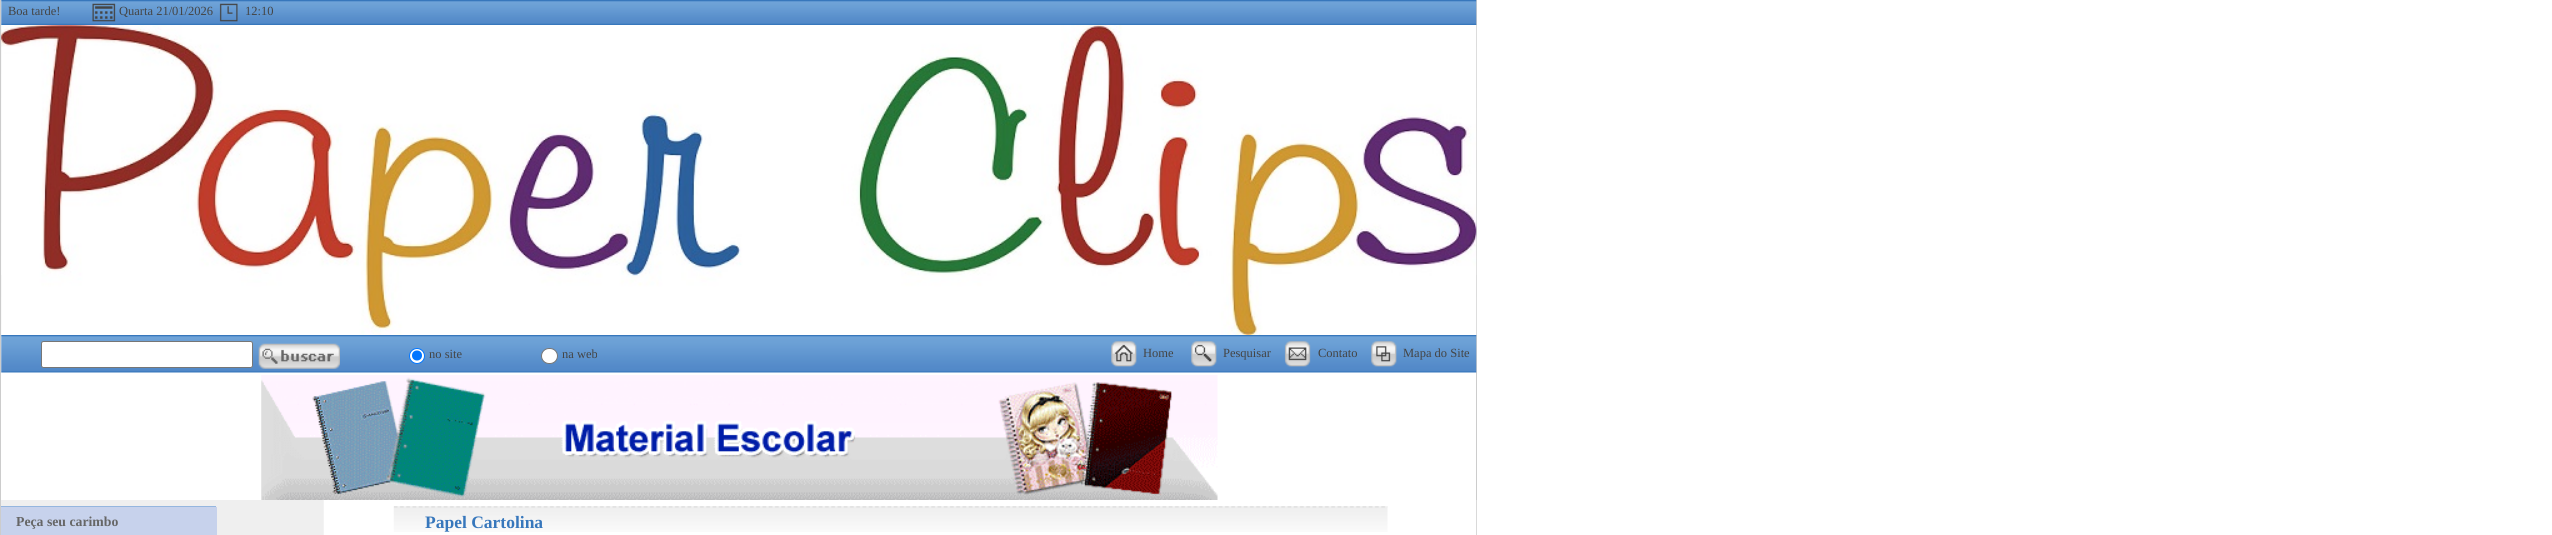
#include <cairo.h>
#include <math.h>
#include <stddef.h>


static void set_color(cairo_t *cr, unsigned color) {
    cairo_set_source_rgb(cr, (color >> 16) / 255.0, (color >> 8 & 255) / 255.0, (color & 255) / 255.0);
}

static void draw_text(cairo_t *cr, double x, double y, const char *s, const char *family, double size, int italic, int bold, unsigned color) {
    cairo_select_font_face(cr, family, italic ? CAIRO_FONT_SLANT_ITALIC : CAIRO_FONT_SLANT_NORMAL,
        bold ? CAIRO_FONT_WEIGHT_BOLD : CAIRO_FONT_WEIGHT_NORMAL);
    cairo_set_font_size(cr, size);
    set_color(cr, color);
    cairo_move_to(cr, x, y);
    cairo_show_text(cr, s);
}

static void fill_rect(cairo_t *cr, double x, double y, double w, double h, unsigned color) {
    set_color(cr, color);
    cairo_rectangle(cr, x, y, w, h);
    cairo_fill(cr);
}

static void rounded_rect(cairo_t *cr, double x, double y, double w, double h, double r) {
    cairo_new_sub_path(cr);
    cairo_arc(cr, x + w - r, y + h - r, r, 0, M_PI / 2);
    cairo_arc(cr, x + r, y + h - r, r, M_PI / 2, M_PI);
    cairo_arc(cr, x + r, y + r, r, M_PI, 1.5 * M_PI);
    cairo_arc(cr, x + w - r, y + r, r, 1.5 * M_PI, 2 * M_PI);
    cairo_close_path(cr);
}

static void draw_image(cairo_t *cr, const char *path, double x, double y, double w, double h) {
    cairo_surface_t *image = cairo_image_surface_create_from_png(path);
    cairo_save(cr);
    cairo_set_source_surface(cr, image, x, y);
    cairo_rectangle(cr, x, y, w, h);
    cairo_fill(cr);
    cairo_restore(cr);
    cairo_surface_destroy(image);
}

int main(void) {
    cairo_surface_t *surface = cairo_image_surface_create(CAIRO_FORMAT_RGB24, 2552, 535);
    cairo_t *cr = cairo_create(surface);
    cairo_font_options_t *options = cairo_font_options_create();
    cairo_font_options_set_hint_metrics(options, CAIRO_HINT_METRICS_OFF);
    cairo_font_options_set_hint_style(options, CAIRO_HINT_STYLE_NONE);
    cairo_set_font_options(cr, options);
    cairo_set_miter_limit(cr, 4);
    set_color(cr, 0xFFFFFF);
    cairo_paint(cr);
    fill_rect(cr, 1476, 0, 1, 500, 0xCCCCCC);
    fill_rect(cr, 0, 0, 1, 535, 0xCCCCCC);
    draw_image(cr, "assets/img1.png", 1, 0, 1476, 25);
    draw_text(cr, 8, 15, "Boa tarde!", "Liberation Serif", 12.5, 0, 0, 0x444444);
    draw_image(cr, "assets/img2.png", 92, 3, 24, 19);
    draw_text(cr, 119, 15, "Quarta 21/01/2026", "Liberation Serif", 12.5, 0, 0, 0x444444);
    draw_image(cr, "assets/img3.png", 219, 3, 19, 19);
    draw_text(cr, 245, 15, "12:10", "Liberation Serif", 12.5, 0, 0, 0x444444);
    draw_image(cr, "assets/img4.png", 1, 25, 1476, 310);
    draw_image(cr, "assets/img5.png", 1, 25, 1476, 310);
    draw_image(cr, "assets/img6.png", 1, 335, 1476, 38);
    set_color(cr, 0xFFFFFF);
    rounded_rect(cr, 41.5, 341.5, 211, 26, 2);
    cairo_fill_preserve(cr);
    set_color(cr, 0x767676);
    cairo_set_line_width(cr, 1);
    cairo_stroke(cr);
    draw_image(cr, "assets/img7.png", 258, 343, 82, 26);
    set_color(cr, 0xFFFFFF);
    cairo_arc(cr, 417, 356, 7.5, 0, 2 * M_PI);
    cairo_fill_preserve(cr);
    set_color(cr, 0x0075FF);
    cairo_stroke(cr);
    cairo_arc(cr, 417, 355.5, 5, 0, 2 * M_PI);
    cairo_fill(cr);
    draw_text(cr, 429, 358, "no site", "Liberation Serif", 12.5, 0, 0, 0x444444);
    set_color(cr, 0xFFFFFF);
    rounded_rect(cr, 541.5, 348.5, 16, 15, 7.5);
    cairo_fill_preserve(cr);
    set_color(cr, 0x767676);
    cairo_stroke(cr);
    draw_text(cr, 562, 358, "na web", "Liberation Serif", 12.5, 0, 0, 0x444444);
    draw_image(cr, "assets/img8.png", 1111, 341, 26, 26);
    draw_text(cr, 1143, 357, "Home", "Liberation Serif", 12.5, 0, 0, 0x444444);
    draw_image(cr, "assets/img9.png", 1191, 341, 26, 26);
    draw_text(cr, 1223, 357, "Pesquisar", "Liberation Serif", 12.5, 0, 0, 0x444444);
    draw_image(cr, "assets/img10.png", 1284, 341, 27, 26);
    draw_text(cr, 1318, 357, "Contato", "Liberation Serif", 12.5, 0, 0, 0x444444);
    draw_image(cr, "assets/img11.png", 1371, 341, 26, 26);
    draw_text(cr, 1403, 357, "Mapa do Site", "Liberation Serif", 12.5, 0, 0, 0x444444);
    draw_image(cr, "assets/img12.png", 261, 375, 957, 125);
    fill_rect(cr, 1, 500, 322, 35, 0xEFEFEF);
    fill_rect(cr, 1, 506, 215, 1, 0x95B6DF);
    fill_rect(cr, 1, 507, 216, 28, 0xC7D2EC);
    draw_text(cr, 16, 526, "Peça seu carimbo", "Liberation Serif", 13.75, 0, 1, 0x666666);
    fill_rect(cr, 323, 500, 1, 35, 0xF3F3F3);
    draw_image(cr, "assets/img13.png", 393, 506, 995, 26);
    draw_text(cr, 425, 528, "Papel Cartolina", "Liberation Serif", 17.5, 0, 1, 0x3777BC);
    fill_rect(cr, 1476, 500, 1, 35, 0xD9D9D9);
    cairo_surface_write_to_png(surface, "output.png");
    cairo_font_options_destroy(options);
    cairo_destroy(cr);
    cairo_surface_destroy(surface);
    return 0;
}
